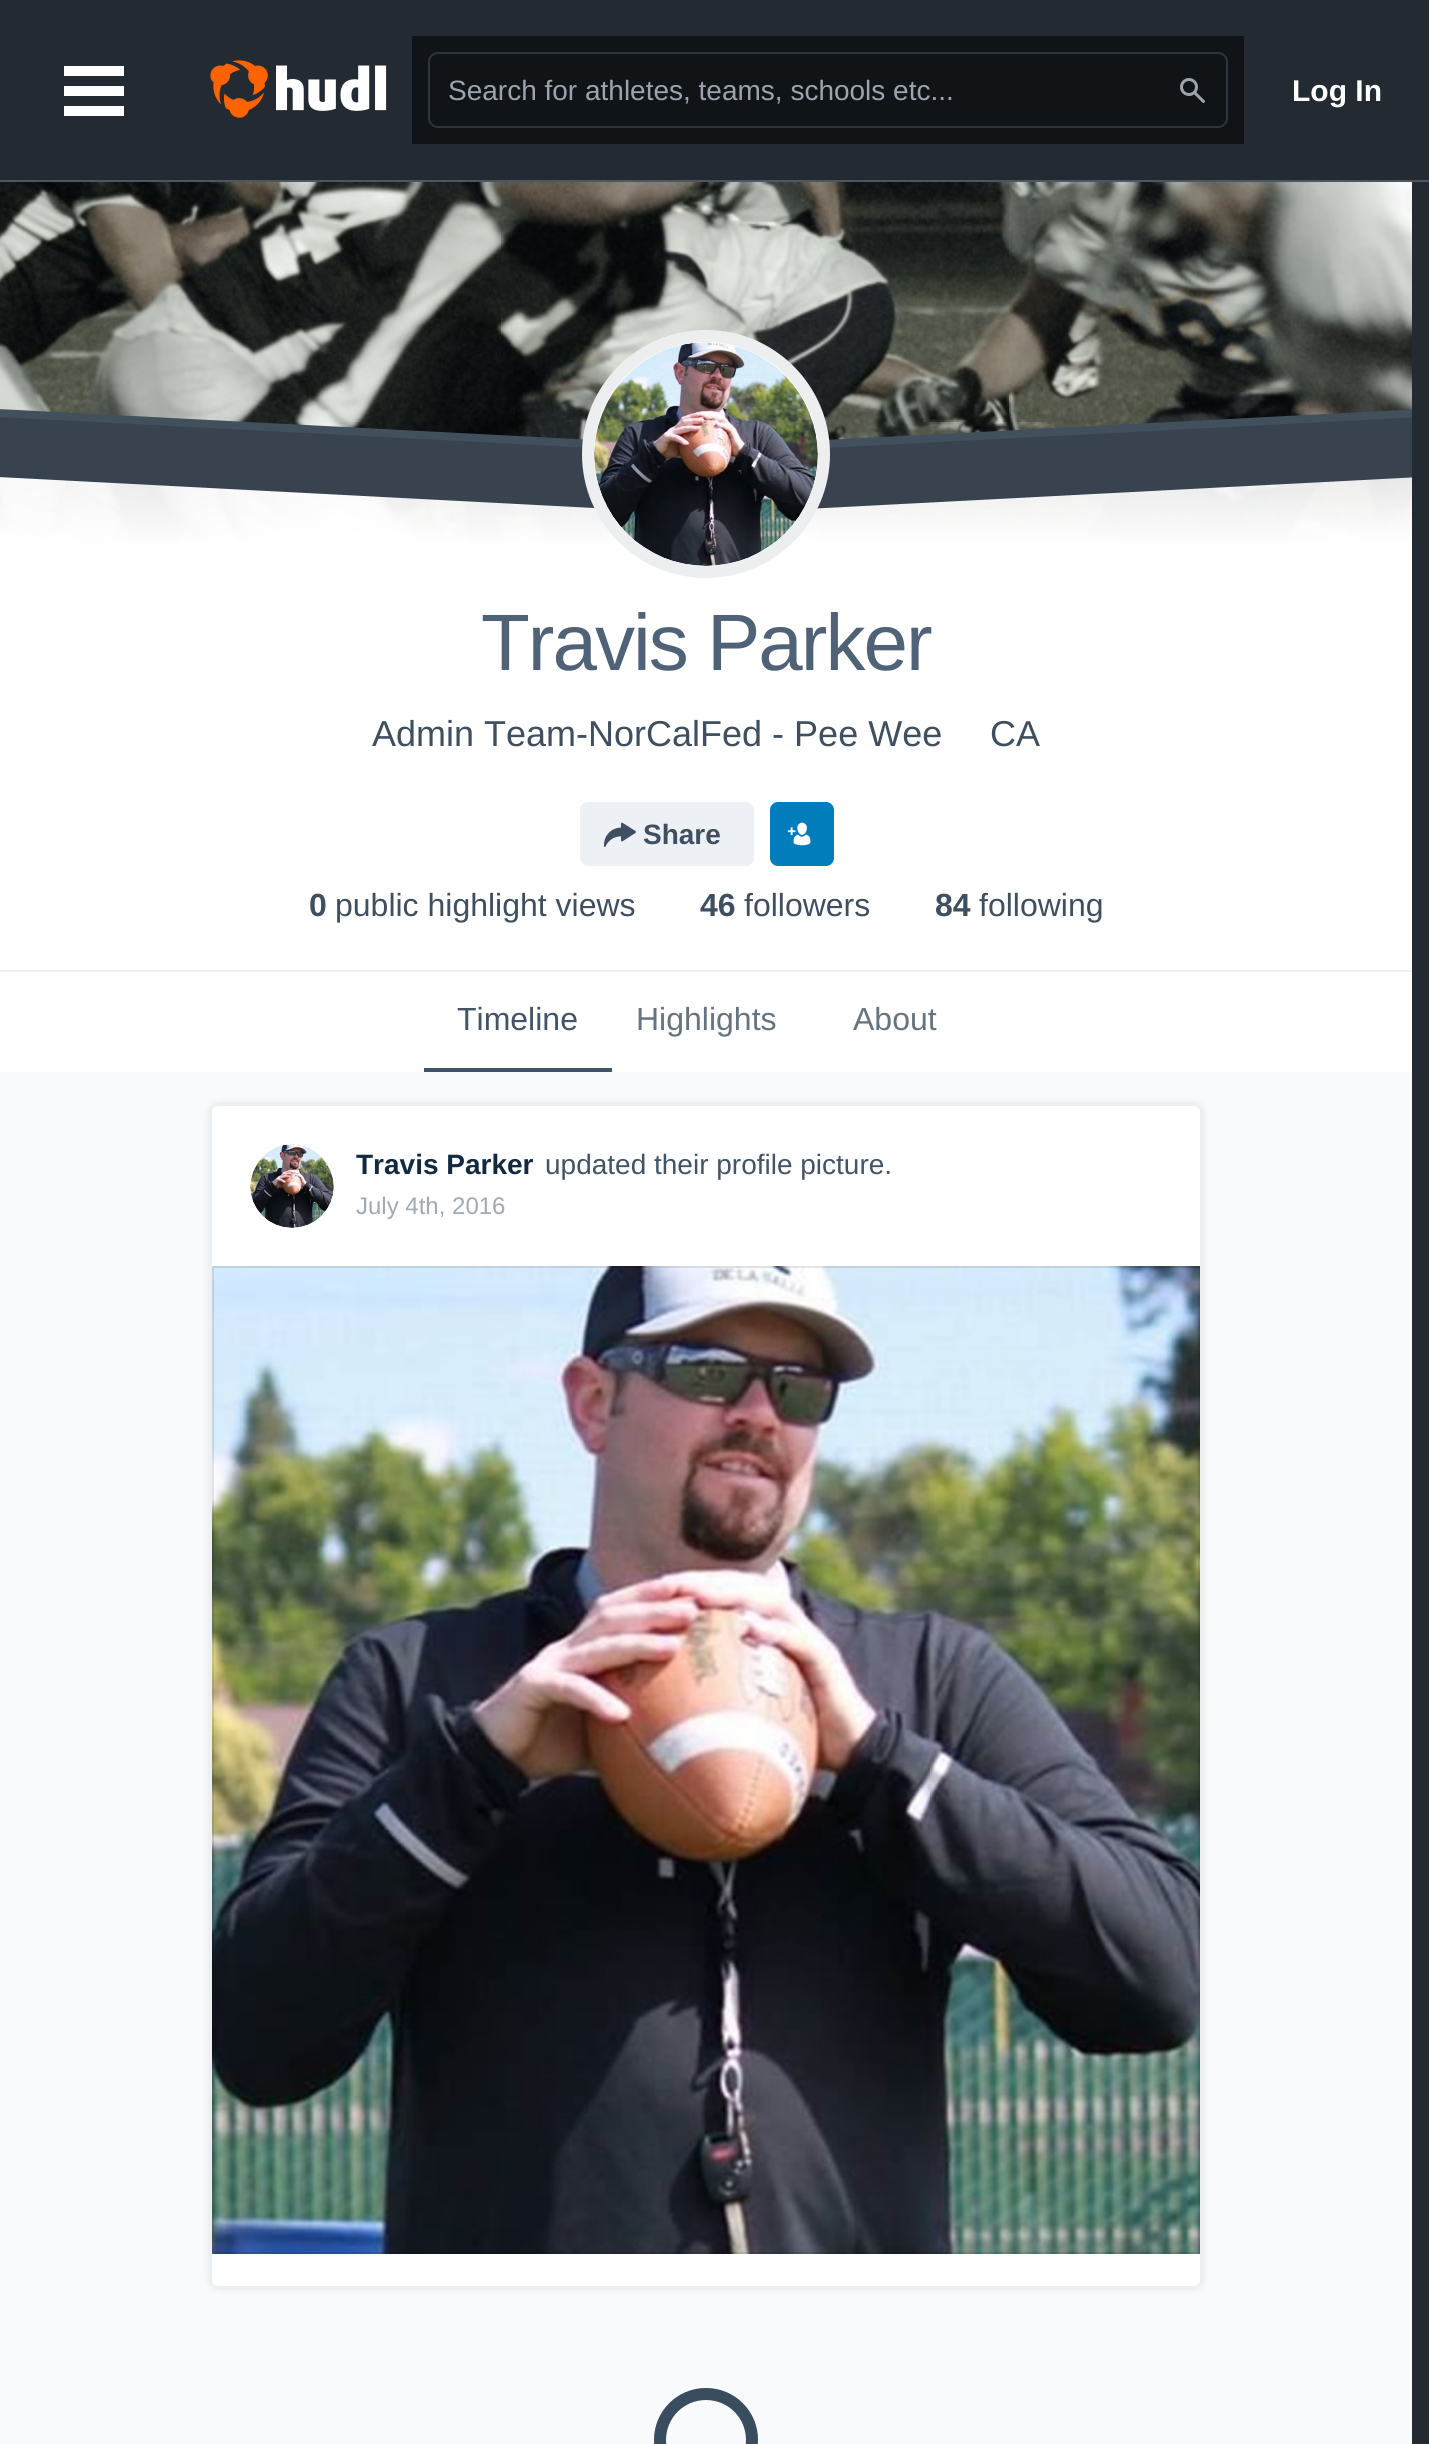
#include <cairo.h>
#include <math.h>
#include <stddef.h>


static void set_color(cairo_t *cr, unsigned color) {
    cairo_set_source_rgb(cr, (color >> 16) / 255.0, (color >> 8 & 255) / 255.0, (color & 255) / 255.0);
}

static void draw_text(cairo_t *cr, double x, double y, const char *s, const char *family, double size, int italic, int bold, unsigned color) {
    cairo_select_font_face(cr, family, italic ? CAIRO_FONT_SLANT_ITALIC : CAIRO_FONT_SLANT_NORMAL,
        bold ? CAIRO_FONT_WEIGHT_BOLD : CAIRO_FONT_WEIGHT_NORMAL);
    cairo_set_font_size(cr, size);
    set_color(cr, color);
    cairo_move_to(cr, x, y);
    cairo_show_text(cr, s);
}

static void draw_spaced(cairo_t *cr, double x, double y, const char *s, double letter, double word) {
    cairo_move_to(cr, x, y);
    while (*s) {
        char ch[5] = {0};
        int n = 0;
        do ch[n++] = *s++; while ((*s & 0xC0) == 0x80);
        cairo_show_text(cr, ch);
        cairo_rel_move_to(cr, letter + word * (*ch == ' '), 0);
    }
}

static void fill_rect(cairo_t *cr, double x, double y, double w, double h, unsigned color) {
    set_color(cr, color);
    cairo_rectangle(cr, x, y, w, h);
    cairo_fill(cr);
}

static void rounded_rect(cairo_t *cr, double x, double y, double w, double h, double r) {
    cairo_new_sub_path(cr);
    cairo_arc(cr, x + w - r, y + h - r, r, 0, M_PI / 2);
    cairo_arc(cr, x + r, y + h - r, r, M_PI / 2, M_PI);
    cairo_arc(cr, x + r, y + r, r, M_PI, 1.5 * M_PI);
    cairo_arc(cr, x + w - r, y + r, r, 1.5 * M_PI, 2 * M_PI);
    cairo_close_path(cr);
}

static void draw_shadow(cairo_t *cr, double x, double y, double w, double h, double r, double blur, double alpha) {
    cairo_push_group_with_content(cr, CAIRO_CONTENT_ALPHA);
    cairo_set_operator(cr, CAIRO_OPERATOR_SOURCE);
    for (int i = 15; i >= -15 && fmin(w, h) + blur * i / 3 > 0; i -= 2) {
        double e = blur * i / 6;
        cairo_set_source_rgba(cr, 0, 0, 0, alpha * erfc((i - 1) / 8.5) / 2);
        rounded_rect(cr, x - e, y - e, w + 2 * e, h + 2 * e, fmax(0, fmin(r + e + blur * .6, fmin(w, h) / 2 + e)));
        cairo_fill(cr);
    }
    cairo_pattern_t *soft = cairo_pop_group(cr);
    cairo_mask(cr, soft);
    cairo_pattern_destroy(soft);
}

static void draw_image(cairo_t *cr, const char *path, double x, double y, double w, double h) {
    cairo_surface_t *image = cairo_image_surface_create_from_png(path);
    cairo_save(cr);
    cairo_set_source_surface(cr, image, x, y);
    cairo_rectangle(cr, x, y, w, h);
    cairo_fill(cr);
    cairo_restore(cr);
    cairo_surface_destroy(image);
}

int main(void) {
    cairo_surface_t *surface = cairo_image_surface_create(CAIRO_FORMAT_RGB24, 1429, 2444);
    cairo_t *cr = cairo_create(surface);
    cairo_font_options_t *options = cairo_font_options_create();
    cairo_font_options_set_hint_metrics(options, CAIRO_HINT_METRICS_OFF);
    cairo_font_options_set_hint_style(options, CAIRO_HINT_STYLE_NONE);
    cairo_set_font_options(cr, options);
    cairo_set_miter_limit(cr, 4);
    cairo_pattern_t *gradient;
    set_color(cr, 0x232A31);
    cairo_paint(cr);
    fill_rect(cr, 0, 180, 1429, 2, 0x4C5761);
    fill_rect(cr, 64, 66, 60, 10, 0xFFFFFF);
    fill_rect(cr, 64, 86, 60, 10, 0xFFFFFF);
    fill_rect(cr, 64, 106, 60, 10, 0xFFFFFF);
    draw_image(cr, "assets/img1.png", 210, 60, 177, 58);
    fill_rect(cr, 412, 36, 832, 108, 0x101417);
    rounded_rect(cr, 429, 53, 798, 74, 9);
    set_color(cr, 0x2C353E);
    cairo_stroke(cr);
    draw_text(cr, 448, 100, "Search for athletes, teams, schools etc...", "Liberation Sans", 28, 0, 0, 0x9BA4AE);
    draw_image(cr, "assets/img2.png", 1180, 78, 25, 25);
    draw_text(cr, 1292, 101, "Log In", "Liberation Sans", 30, 0, 1, 0xFFFFFF);
    draw_image(cr, "assets/img3.png", 0, 182, 1412, 361);
    gradient = cairo_pattern_create_linear(706, 442, 706, 970);
    cairo_pattern_add_color_stop_rgba(gradient, 0, 1, 1, 1, 0.85);
    cairo_pattern_add_color_stop_rgba(gradient, 0.2, 1, 1, 1, 1);
    cairo_set_source(cr, gradient);
    cairo_pattern_destroy(gradient);
    cairo_rectangle(cr, 0, 477, 1412, 493);
    cairo_fill(cr);
    fill_rect(cr, 0, 970, 1412, 2, 0xEDF0F2);
    cairo_save(cr);
    cairo_rectangle(cr, 0, 406, 1412, 100);
    cairo_clip(cr);
    set_color(cr, 0x424F5C);
    cairo_set_fill_rule(cr, CAIRO_FILL_RULE_EVEN_ODD);
    cairo_new_path(cr);
    cairo_move_to(cr, -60, 406);
    cairo_line_to(cr, 709, 446);
    cairo_line_to(cr, 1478, 406);
    cairo_line_to(cr, 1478, 466);
    cairo_line_to(cr, 709, 506);
    cairo_line_to(cr, -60, 466);
    cairo_close_path(cr);
    cairo_fill(cr);
    cairo_restore(cr);
    cairo_save(cr);
    cairo_rectangle(cr, 0, 414, 1412, 100);
    cairo_clip(cr);
    set_color(cr, 0x38434F);
    cairo_set_fill_rule(cr, CAIRO_FILL_RULE_EVEN_ODD);
    cairo_new_path(cr);
    cairo_move_to(cr, -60, 414);
    cairo_line_to(cr, 709, 454);
    cairo_line_to(cr, 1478, 414);
    cairo_line_to(cr, 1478, 474);
    cairo_line_to(cr, 709, 514);
    cairo_line_to(cr, -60, 474);
    cairo_close_path(cr);
    cairo_fill(cr);
    cairo_restore(cr);
    set_color(cr, 0xFFFFFF);
    cairo_arc(cr, 706, 454, 124, 0, 2 * M_PI);
    cairo_fill(cr);
    cairo_arc(cr, 706, 454, 118, 0, 2 * M_PI);
    cairo_set_source_rgba(cr, 0.271, 0.322, 0.369, 0.1);
    cairo_set_line_width(cr, 12);
    cairo_stroke(cr);
    draw_image(cr, "assets/img4.png", 594, 342, 224, 224);
    cairo_select_font_face(cr, "Liberation Sans", CAIRO_FONT_SLANT_NORMAL, CAIRO_FONT_WEIGHT_NORMAL);
    cairo_set_font_size(cr, 80);
    set_color(cr, 0x506277);
    draw_spaced(cr, 481, 670, "Travis Parker", -2, 0);
    draw_text(cr, 372, 746, "Admin Team-NorCalFed - Pee Wee", "Liberation Sans", 36, 0, 0, 0x3F4F5F);
    draw_text(cr, 990, 746, "CA", "Liberation Sans", 36, 0, 0, 0x3F4F5F);
    set_color(cr, 0xEDF1F5);
    rounded_rect(cr, 580, 802, 174, 64, 8);
    cairo_fill(cr);
    draw_image(cr, "assets/img5.png", 604, 822, 32, 25);
    draw_text(cr, 643, 844, "Share", "Liberation Sans", 28, 0, 1, 0x3F4F5F);
    set_color(cr, 0x027DBB);
    rounded_rect(cr, 770, 802, 64, 64, 8);
    cairo_fill(cr);
    draw_image(cr, "assets/img6.png", 787, 822, 24, 24);
    draw_text(cr, 309, 916, "0", "Liberation Sans", 32, 0, 1, 0x3F4F5F);
    draw_text(cr, 335, 916, "public highlight views", "Liberation Sans", 32, 0, 0, 0x3F4F5F);
    draw_text(cr, 700, 916, "46", "Liberation Sans", 32, 0, 1, 0x3F4F5F);
    draw_text(cr, 744, 916, "followers", "Liberation Sans", 32, 0, 0, 0x3F4F5F);
    draw_text(cr, 935, 916, "84", "Liberation Sans", 32, 0, 1, 0x3F4F5F);
    draw_text(cr, 979, 916, "following", "Liberation Sans", 32, 0, 0, 0x3F4F5F);
    fill_rect(cr, 0, 972, 1412, 100, 0xFFFFFF);
    fill_rect(cr, 424, 1068, 188, 4, 0x425465);
    draw_text(cr, 457, 1030, "Timeline", "Liberation Sans", 32, 0, 0, 0x425465);
    draw_text(cr, 636, 1030, "Highlights", "Liberation Sans", 32, 0, 0, 0x667482);
    draw_text(cr, 853, 1030, "About", "Liberation Sans", 32, 0, 0, 0x667482);
    fill_rect(cr, 0, 1072, 1412, 1372, 0xF9FAFB);
    set_color(cr, 0x000000);
    draw_shadow(cr, 210, 1104, 992, 1184, 8, 4, 0.1);
    set_color(cr, 0xFFFFFF);
    rounded_rect(cr, 211, 1105, 990, 1182, 7);
    cairo_fill_preserve(cr);
    set_color(cr, 0xEDF0F2);
    cairo_set_line_width(cr, 2);
    cairo_stroke(cr);
    draw_image(cr, "assets/img7.png", 250, 1144, 84, 84);
    draw_text(cr, 356, 1174, "Travis Parker", "Liberation Sans", 28, 0, 1, 0x13293F);
    draw_text(cr, 545, 1174, "updated their profile picture.", "Liberation Sans", 28, 0, 0, 0x425465);
    draw_text(cr, 356, 1214, "July 4th, 2016", "Liberation Sans", 24, 0, 0, 0xA1A9B2);
    draw_image(cr, "assets/img8.png", 212, 1266, 988, 988);
    cairo_rectangle(cr, 213, 1267, 986, 986);
    cairo_set_source_rgba(cr, 0, 0, 0, 0.1);
    cairo_stroke(cr);
    cairo_new_path(cr);
    cairo_move_to(cr, 706, 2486);
    cairo_curve_to(cr, 731.5, 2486, 752, 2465.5, 752, 2440);
    cairo_curve_to(cr, 752, 2414.5, 731.5, 2394, 706, 2394);
    cairo_curve_to(cr, 680.5, 2394, 660, 2414.5, 660, 2440);
    cairo_curve_to(cr, 660, 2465.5, 680.5, 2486, 706, 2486);
    cairo_close_path(cr);
    set_color(cr, 0xD3D7DC);
    cairo_set_line_width(cr, 12);
    cairo_stroke(cr);
    cairo_new_path(cr);
    cairo_move_to(cr, 706, 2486);
    cairo_curve_to(cr, 731.5, 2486, 752, 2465.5, 752, 2440);
    cairo_curve_to(cr, 752, 2414.5, 731.5, 2394, 706, 2394);
    cairo_curve_to(cr, 680.5, 2394, 660, 2414.5, 660, 2440);
    cairo_curve_to(cr, 660, 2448, 662, 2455.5, 666, 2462.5);
    set_color(cr, 0x3A4D5F);
    cairo_set_line_cap(cr, CAIRO_LINE_CAP_ROUND);
    cairo_stroke(cr);
    cairo_surface_write_to_png(surface, "output.png");
    cairo_font_options_destroy(options);
    cairo_destroy(cr);
    cairo_surface_destroy(surface);
    return 0;
}
